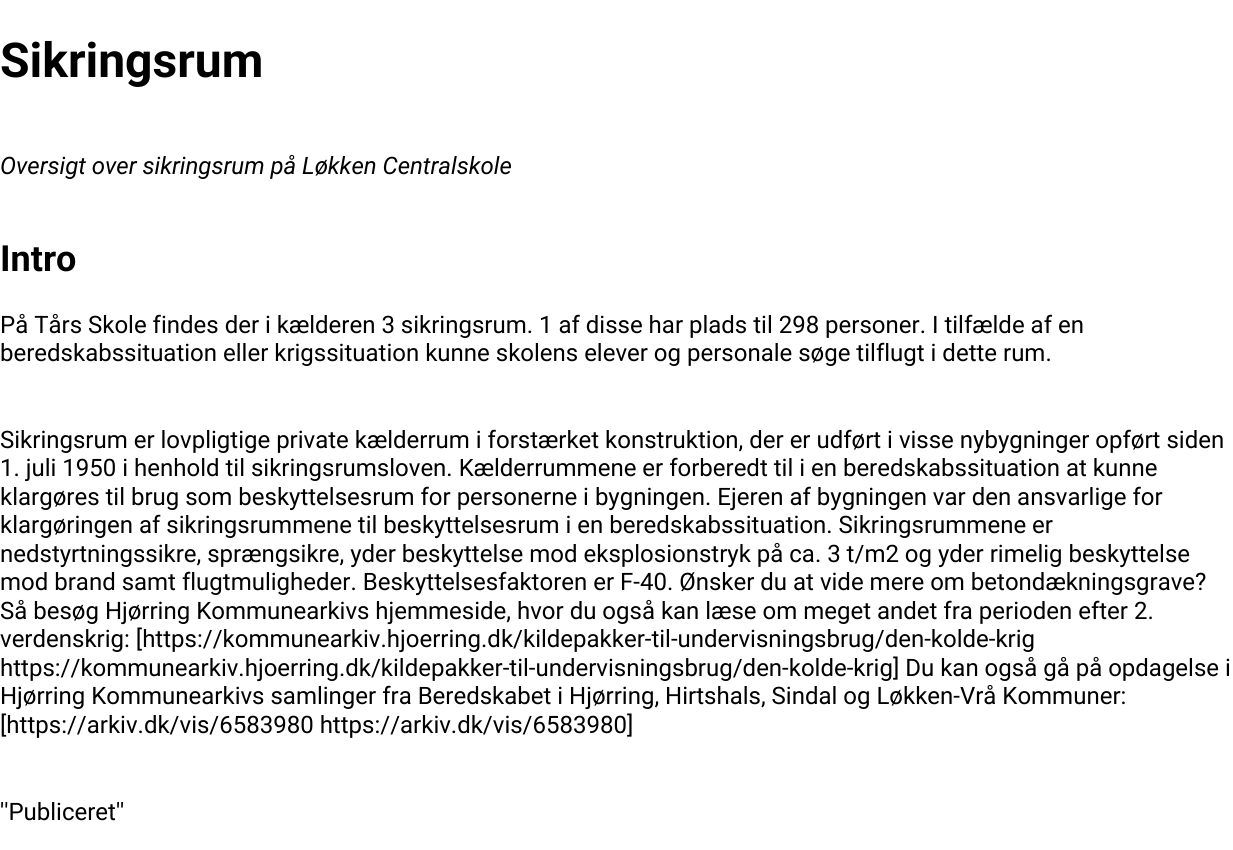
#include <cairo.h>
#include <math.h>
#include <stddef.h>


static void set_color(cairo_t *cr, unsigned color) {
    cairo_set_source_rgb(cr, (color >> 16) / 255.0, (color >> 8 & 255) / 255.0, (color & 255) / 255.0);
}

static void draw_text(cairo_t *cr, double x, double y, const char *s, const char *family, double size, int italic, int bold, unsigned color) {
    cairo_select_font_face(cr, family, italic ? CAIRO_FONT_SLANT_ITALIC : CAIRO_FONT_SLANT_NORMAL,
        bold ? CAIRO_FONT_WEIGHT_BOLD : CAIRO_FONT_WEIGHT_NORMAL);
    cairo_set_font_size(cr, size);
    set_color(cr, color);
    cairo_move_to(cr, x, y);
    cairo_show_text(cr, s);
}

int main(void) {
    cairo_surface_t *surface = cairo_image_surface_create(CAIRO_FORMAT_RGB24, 1233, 850);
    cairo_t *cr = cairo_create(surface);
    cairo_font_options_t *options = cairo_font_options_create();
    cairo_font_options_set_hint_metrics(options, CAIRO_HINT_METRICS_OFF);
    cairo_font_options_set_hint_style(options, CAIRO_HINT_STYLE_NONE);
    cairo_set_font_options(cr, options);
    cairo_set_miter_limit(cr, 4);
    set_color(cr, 0xFFFFFF);
    cairo_paint(cr);
    draw_text(cr, 0, 77, "Sikringsrum", "Roboto", 48, 0, 1, 0x000000);
    draw_text(cr, 0, 174, "Oversigt over sikringsrum på Løkken Centralskole", "Roboto", 24, 1, 0, 0x000000);
    draw_text(cr, 0, 271, "Intro", "Roboto", 36, 0, 1, 0x000000);
    draw_text(cr, 0, 333, "På Tårs Skole findes der i kælderen 3 sikringsrum. 1 af disse har plads til 298 personer. I tilfælde af en", "Roboto", 24, 0, 0, 0x000000);
    draw_text(cr, 0, 361, "beredskabssituation eller krigssituation kunne skolens elever og personale søge tilflugt i dette rum.", "Roboto", 24, 0, 0, 0x000000);
    draw_text(cr, 0, 448, "Sikringsrum er lovpligtige private kælderrum i forstærket konstruktion, der er udført i visse nybygninger opført siden", "Roboto", 24, 0, 0, 0x000000);
    draw_text(cr, 0, 476, "1. juli 1950 i henhold til sikringsrumsloven. Kælderrummene er forberedt til i en beredskabssituation at kunne", "Roboto", 24, 0, 0, 0x000000);
    draw_text(cr, 0, 505, "klargøres til brug som beskyttelsesrum for personerne i bygningen. Ejeren af bygningen var den ansvarlige for", "Roboto", 24, 0, 0, 0x000000);
    draw_text(cr, 0, 533, "klargøringen af sikringsrummene til beskyttelsesrum i en beredskabssituation. Sikringsrummene er", "Roboto", 24, 0, 0, 0x000000);
    draw_text(cr, 0, 562, "nedstyrtningssikre, sprængsikre, yder beskyttelse mod eksplosionstryk på ca. 3 t/m2 og yder rimelig beskyttelse", "Roboto", 24, 0, 0, 0x000000);
    draw_text(cr, 0, 590, "mod brand samt flugtmuligheder. Beskyttelsesfaktoren er F-40. Ønsker du at vide mere om betondækningsgrave?", "Roboto", 24, 0, 0, 0x000000);
    draw_text(cr, 0, 619, "Så besøg Hjørring Kommunearkivs hjemmeside, hvor du også kan læse om meget andet fra perioden efter 2.", "Roboto", 24, 0, 0, 0x000000);
    draw_text(cr, 0, 647, "verdenskrig: [https://kommunearkiv.hjoerring.dk/kildepakker-til-undervisningsbrug/den-kolde-krig", "Roboto", 24, 0, 0, 0x000000);
    draw_text(cr, 0, 676, "https://kommunearkiv.hjoerring.dk/kildepakker-til-undervisningsbrug/den-kolde-krig] Du kan også gå på opdagelse i", "Roboto", 24, 0, 0, 0x000000);
    draw_text(cr, 0, 704, "Hjørring Kommunearkivs samlinger fra Beredskabet i Hjørring, Hirtshals, Sindal og Løkken-Vrå Kommuner:", "Roboto", 24, 0, 0, 0x000000);
    draw_text(cr, 0, 733, "[https://arkiv.dk/vis/6583980 https://arkiv.dk/vis/6583980]", "Roboto", 24, 0, 0, 0x000000);
    draw_text(cr, 0, 820, "''Publiceret''", "Roboto", 24, 0, 0, 0x000000);
    cairo_surface_write_to_png(surface, "output.png");
    cairo_font_options_destroy(options);
    cairo_destroy(cr);
    cairo_surface_destroy(surface);
    return 0;
}
